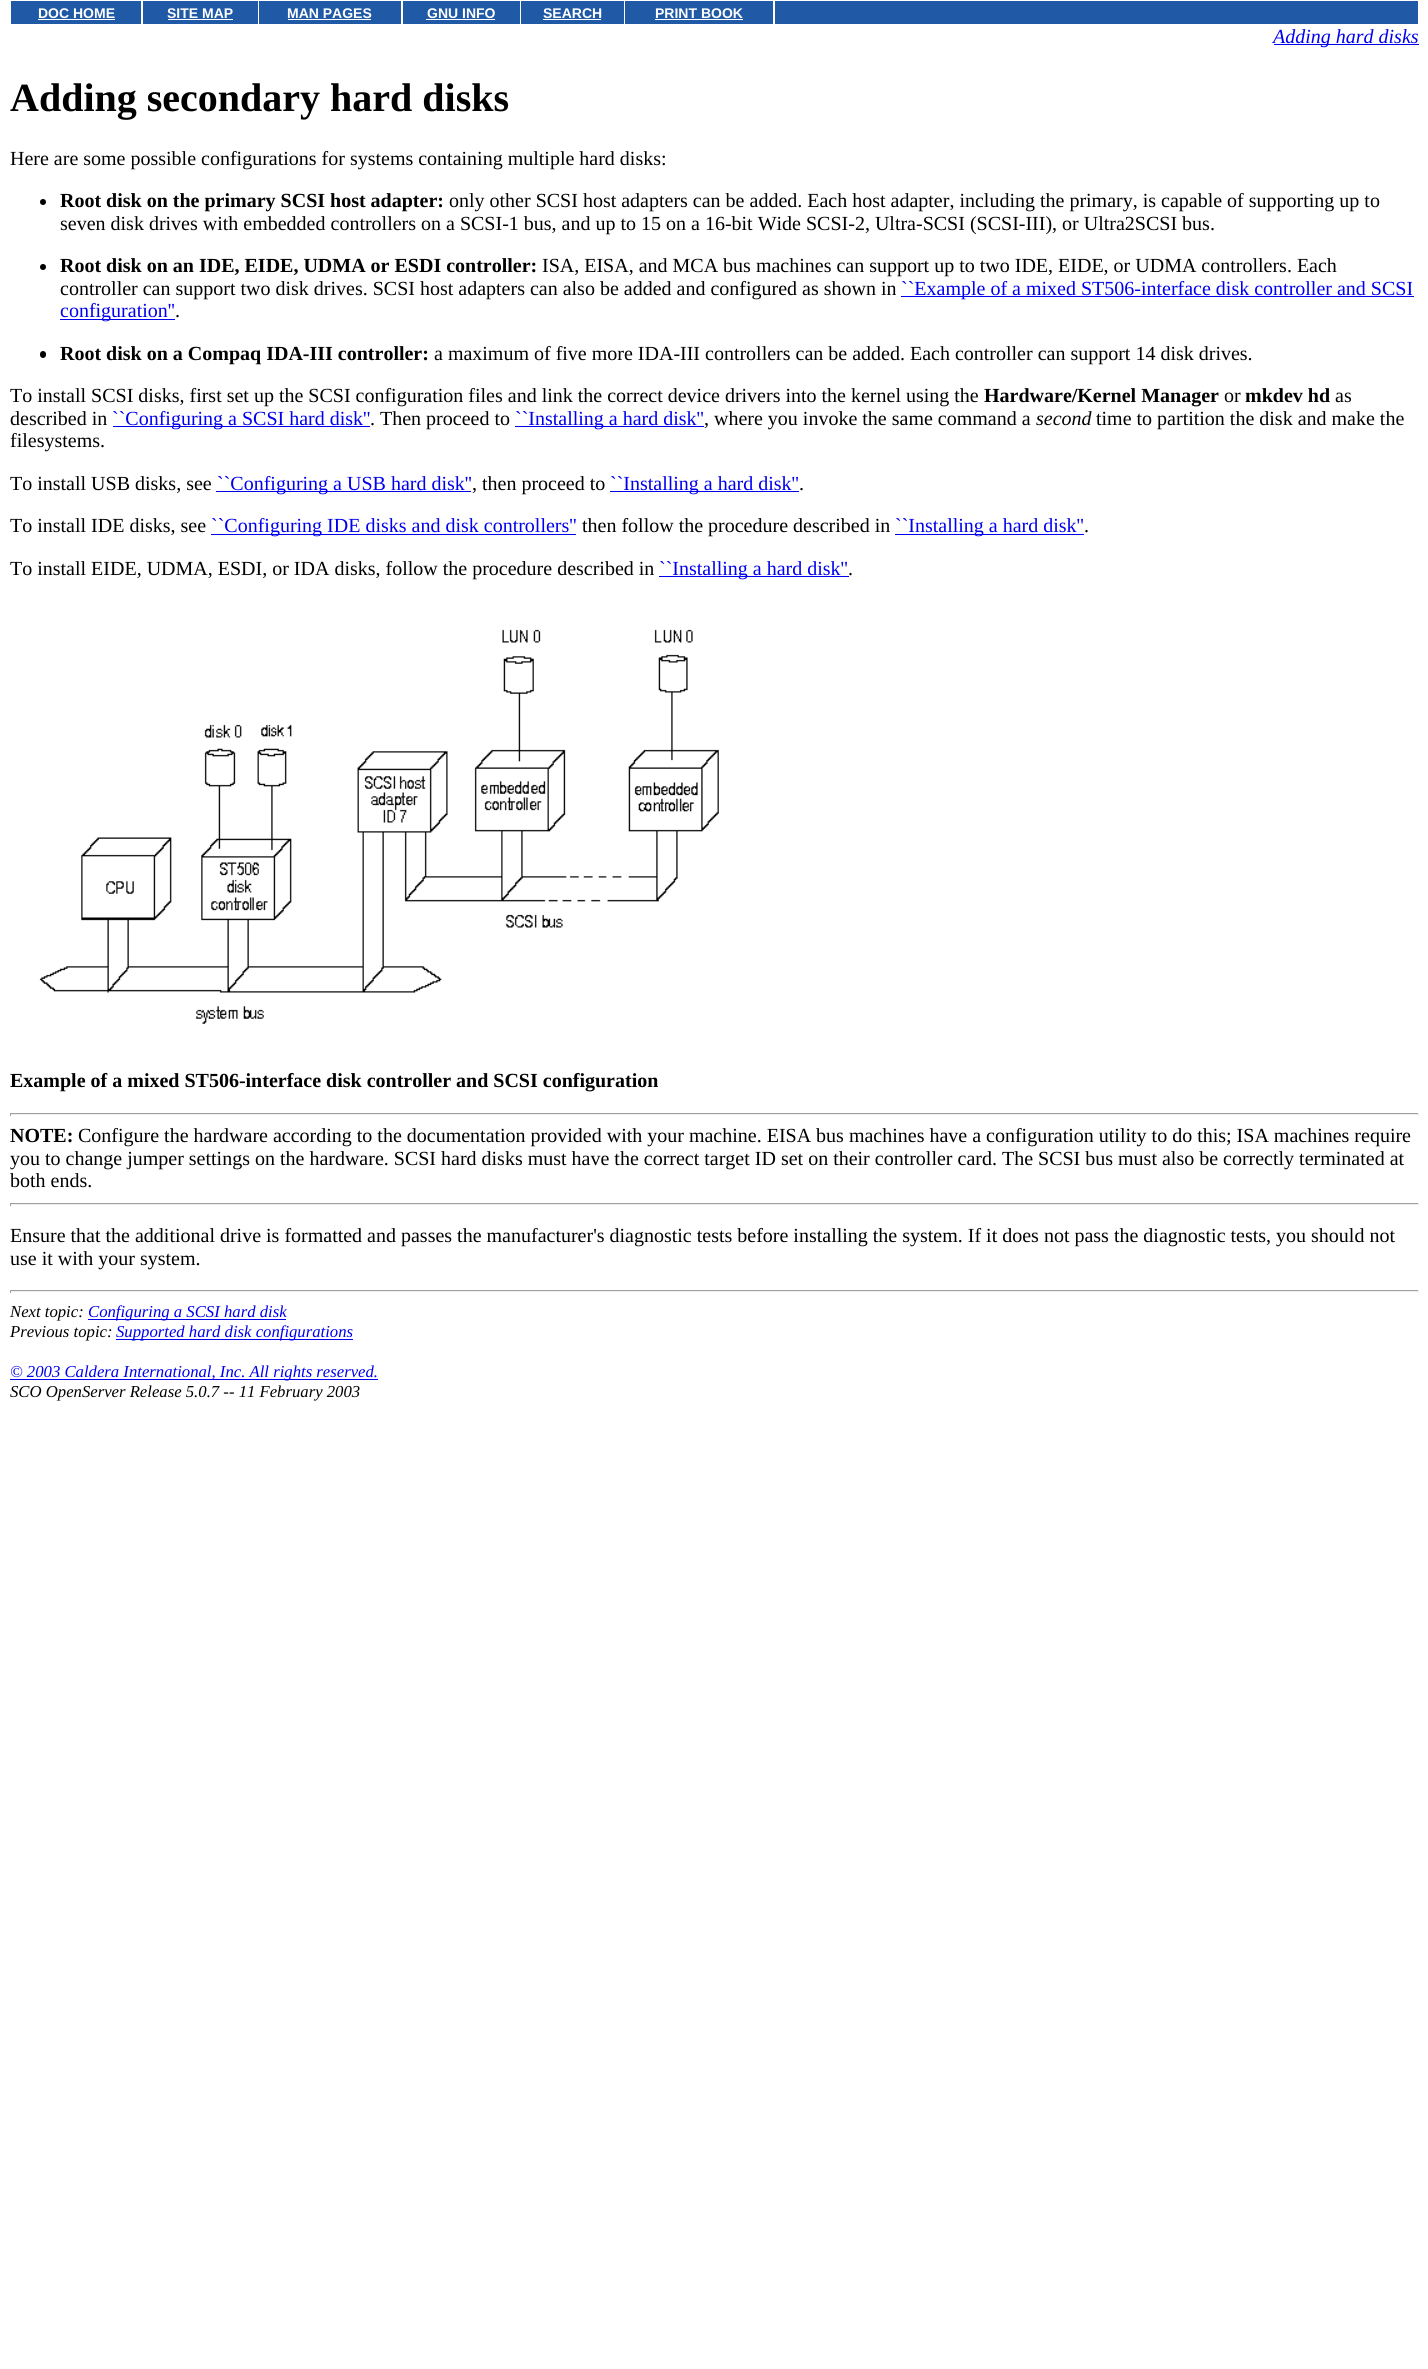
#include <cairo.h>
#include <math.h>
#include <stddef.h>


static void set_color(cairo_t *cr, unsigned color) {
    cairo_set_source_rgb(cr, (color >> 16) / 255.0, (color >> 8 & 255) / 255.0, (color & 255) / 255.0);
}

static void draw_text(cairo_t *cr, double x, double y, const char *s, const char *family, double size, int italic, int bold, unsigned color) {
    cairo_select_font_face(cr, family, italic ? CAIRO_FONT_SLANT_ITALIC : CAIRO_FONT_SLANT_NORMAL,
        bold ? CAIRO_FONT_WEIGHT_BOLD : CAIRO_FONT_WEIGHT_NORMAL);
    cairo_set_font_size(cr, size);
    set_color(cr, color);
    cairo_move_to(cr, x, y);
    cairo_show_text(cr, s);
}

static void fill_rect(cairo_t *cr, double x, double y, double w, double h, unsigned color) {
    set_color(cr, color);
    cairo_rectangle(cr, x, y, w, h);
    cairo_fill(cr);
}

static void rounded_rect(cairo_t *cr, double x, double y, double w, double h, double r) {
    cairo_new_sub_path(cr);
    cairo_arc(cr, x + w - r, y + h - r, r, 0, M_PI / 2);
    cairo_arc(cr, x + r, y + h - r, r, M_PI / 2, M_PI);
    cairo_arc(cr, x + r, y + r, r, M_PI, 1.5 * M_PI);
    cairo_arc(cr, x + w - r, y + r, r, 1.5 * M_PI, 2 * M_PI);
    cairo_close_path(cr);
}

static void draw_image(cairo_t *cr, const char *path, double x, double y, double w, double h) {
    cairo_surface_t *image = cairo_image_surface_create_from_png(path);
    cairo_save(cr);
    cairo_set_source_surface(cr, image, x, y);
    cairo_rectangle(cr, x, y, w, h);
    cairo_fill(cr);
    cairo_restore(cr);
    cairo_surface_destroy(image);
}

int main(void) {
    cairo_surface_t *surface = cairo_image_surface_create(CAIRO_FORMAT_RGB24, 1428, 2369);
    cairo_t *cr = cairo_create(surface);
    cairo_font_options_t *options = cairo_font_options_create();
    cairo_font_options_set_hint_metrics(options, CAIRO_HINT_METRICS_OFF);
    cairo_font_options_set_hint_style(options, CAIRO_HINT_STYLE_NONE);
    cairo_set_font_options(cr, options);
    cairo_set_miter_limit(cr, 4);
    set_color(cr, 0xFFFFFF);
    cairo_paint(cr);
    fill_rect(cr, 11, 1, 130, 23, 0x2059A6);
    draw_text(cr, 38, 18, "DOC HOME", "Liberation Sans", 14, 0, 1, 0xFFFFFF);
    fill_rect(cr, 38, 19, 77, 1, 0xFFFFFF);
    fill_rect(cr, 143, 1, 115, 23, 0x2059A6);
    draw_text(cr, 167, 18, "SITE MAP", "Liberation Sans", 14, 0, 1, 0xFFFFFF);
    fill_rect(cr, 168, 19, 65, 1, 0xFFFFFF);
    fill_rect(cr, 259, 1, 142, 23, 0x2059A6);
    draw_text(cr, 287, 18, "MAN PAGES", "Liberation Sans", 14, 0, 1, 0xFFFFFF);
    fill_rect(cr, 288, 19, 83, 1, 0xFFFFFF);
    fill_rect(cr, 403, 1, 117, 23, 0x2059A6);
    draw_text(cr, 427, 18, "GNU INFO", "Liberation Sans", 14, 0, 1, 0xFFFFFF);
    fill_rect(cr, 426, 19, 69, 1, 0xFFFFFF);
    fill_rect(cr, 521, 1, 103, 23, 0x2059A6);
    draw_text(cr, 543, 18, "SEARCH", "Liberation Sans", 14, 0, 1, 0xFFFFFF);
    fill_rect(cr, 543, 19, 58, 1, 0xFFFFFF);
    fill_rect(cr, 625, 1, 148, 23, 0x2059A6);
    draw_text(cr, 655, 18, "PRINT BOOK", "Liberation Sans", 14, 0, 1, 0xFFFFFF);
    fill_rect(cr, 655, 19, 88, 1, 0xFFFFFF);
    fill_rect(cr, 775, 1, 643, 23, 0x2059A6);
    fill_rect(cr, 1274, 44, 145, 1, 0x0000EE);
    draw_text(cr, 1273, 43, "Adding hard disks", "Liberation Serif", 20, 1, 0, 0x0000EE);
    draw_text(cr, 10, 111, "Adding secondary hard disks", "Liberation Serif", 40, 0, 1, 0x000000);
    draw_text(cr, 10, 165, "Here are some possible configurations for systems containing multiple hard disks:", "Liberation Serif", 20, 0, 0, 0x000000);
    cairo_new_path(cr);
    cairo_arc(cr, 43, 202, 3, 0, 2 * M_PI);
    cairo_fill(cr);
    draw_text(cr, 60, 207, "Root disk on the primary SCSI host adapter:", "Liberation Serif", 20, 0, 1, 0x000000);
    draw_text(cr, 449, 207, "only other SCSI host adapters can be added. Each host adapter, including the primary, is capable of supporting up to", "Liberation Serif", 20, 0, 0, 0x000000);
    draw_text(cr, 60, 230, "seven disk drives with embedded controllers on a SCSI-1 bus, and up to 15 on a 16-bit Wide SCSI-2, Ultra-SCSI (SCSI-III), or Ultra2SCSI bus.", "Liberation Serif", 20, 0, 0, 0x000000);
    cairo_new_path(cr);
    cairo_arc(cr, 43, 267, 3, 0, 2 * M_PI);
    cairo_fill(cr);
    draw_text(cr, 60, 272, "Root disk on an IDE, EIDE, UDMA or ESDI controller:", "Liberation Serif", 20, 0, 1, 0x000000);
    draw_text(cr, 542, 272, "ISA, EISA, and MCA bus machines can support up to two IDE, EIDE, or UDMA controllers. Each", "Liberation Serif", 20, 0, 0, 0x000000);
    draw_text(cr, 60, 295, "controller can support two disk drives. SCSI host adapters can also be added and configured as shown in", "Liberation Serif", 20, 0, 0, 0x000000);
    fill_rect(cr, 901, 296, 513, 1, 0x0000EE);
    draw_text(cr, 901, 295, "``Example of a mixed ST506-interface disk controller and SCSI", "Liberation Serif", 20, 0, 0, 0x0000EE);
    fill_rect(cr, 60, 319, 115, 1, 0x0000EE);
    draw_text(cr, 60, 317, "configuration''", "Liberation Serif", 20, 0, 0, 0x0000EE);
    draw_text(cr, 175, 317, ".", "Liberation Serif", 20, 0, 0, 0x000000);
    rounded_rect(cr, 40, 351, 6, 7, 3);
    cairo_fill(cr);
    draw_text(cr, 60, 360, "Root disk on a Compaq IDA-III controller:", "Liberation Serif", 20, 0, 1, 0x000000);
    draw_text(cr, 434, 360, "a maximum of five more IDA-III controllers can be added. Each controller can support 14 disk drives.", "Liberation Serif", 20, 0, 0, 0x000000);
    draw_text(cr, 10, 402, "To install SCSI disks, first set up the SCSI configuration files and link the correct device drivers into the kernel using the", "Liberation Serif", 20, 0, 0, 0x000000);
    draw_text(cr, 984, 402, "Hardware/Kernel Manager", "Liberation Serif", 20, 0, 1, 0x000000);
    draw_text(cr, 1224, 402, "or", "Liberation Serif", 20, 0, 0, 0x000000);
    draw_text(cr, 1245, 402, "mkdev hd", "Liberation Serif", 20, 0, 1, 0x000000);
    draw_text(cr, 1335, 402, "as", "Liberation Serif", 20, 0, 0, 0x000000);
    draw_text(cr, 10, 425, "described in", "Liberation Serif", 20, 0, 0, 0x000000);
    fill_rect(cr, 113, 426, 257, 1, 0x0000EE);
    draw_text(cr, 112, 425, "``Configuring a SCSI hard disk''", "Liberation Serif", 20, 0, 0, 0x0000EE);
    draw_text(cr, 370, 425, ". Then proceed to", "Liberation Serif", 20, 0, 0, 0x000000);
    fill_rect(cr, 515, 426, 189, 1, 0x0000EE);
    draw_text(cr, 515, 425, "``Installing a hard disk''", "Liberation Serif", 20, 0, 0, 0x0000EE);
    draw_text(cr, 704, 425, ", where you invoke the same command a", "Liberation Serif", 20, 0, 0, 0x000000);
    draw_text(cr, 1036, 425, "second", "Liberation Serif", 20, 1, 0, 0x000000);
    draw_text(cr, 1096, 425, "time to partition the disk and make the", "Liberation Serif", 20, 0, 0, 0x000000);
    draw_text(cr, 10, 447, "filesystems.", "Liberation Serif", 20, 0, 0, 0x000000);
    draw_text(cr, 10, 490, "To install USB disks, see", "Liberation Serif", 20, 0, 0, 0x000000);
    fill_rect(cr, 216, 491, 255, 1, 0x0000EE);
    draw_text(cr, 217, 490, "``Configuring a USB hard disk''", "Liberation Serif", 20, 0, 0, 0x0000EE);
    draw_text(cr, 472, 490, ", then proceed to", "Liberation Serif", 20, 0, 0, 0x000000);
    fill_rect(cr, 610, 491, 189, 1, 0x0000EE);
    draw_text(cr, 610, 490, "``Installing a hard disk''", "Liberation Serif", 20, 0, 0, 0x0000EE);
    draw_text(cr, 799, 490, ".", "Liberation Serif", 20, 0, 0, 0x000000);
    draw_text(cr, 10, 532, "To install IDE disks, see", "Liberation Serif", 20, 0, 0, 0x000000);
    fill_rect(cr, 211, 534, 365, 1, 0x0000EE);
    draw_text(cr, 211, 532, "``Configuring IDE disks and disk controllers''", "Liberation Serif", 20, 0, 0, 0x0000EE);
    draw_text(cr, 582, 532, "then follow the procedure described in", "Liberation Serif", 20, 0, 0, 0x000000);
    fill_rect(cr, 895, 534, 189, 1, 0x0000EE);
    draw_text(cr, 895, 532, "``Installing a hard disk''", "Liberation Serif", 20, 0, 0, 0x0000EE);
    draw_text(cr, 1084, 532, ".", "Liberation Serif", 20, 0, 0, 0x000000);
    draw_text(cr, 10, 575, "To install EIDE, UDMA, ESDI, or IDA disks, follow the procedure described in", "Liberation Serif", 20, 0, 0, 0x000000);
    fill_rect(cr, 659, 576, 190, 1, 0x0000EE);
    draw_text(cr, 659, 575, "``Installing a hard disk''", "Liberation Serif", 20, 0, 0, 0x0000EE);
    draw_text(cr, 848, 575, ".", "Liberation Serif", 20, 0, 0, 0x000000);
    draw_image(cr, "assets/img1.png", 39, 629, 680, 395);
    draw_text(cr, 10, 1087, "Example of a mixed ST506-interface disk controller and SCSI configuration", "Liberation Serif", 20, 0, 1, 0x000000);
    fill_rect(cr, 10, 1113, 1409, 1, 0x9F9F9F);
    fill_rect(cr, 1418, 1113, 1, 3, 0xEEEEEE);
    fill_rect(cr, 10, 1114, 1409, 1, 0xEEEEEE);
    fill_rect(cr, 10, 1113, 1, 3, 0x9F9F9F);
    draw_text(cr, 10, 1142, "NOTE:", "Liberation Serif", 20, 0, 1, 0x000000);
    draw_text(cr, 78, 1142, "Configure the hardware according to the documentation provided with your machine. EISA bus machines have a configuration utility to do this; ISA machines require", "Liberation Serif", 20, 0, 0, 0x000000);
    draw_text(cr, 10, 1165, "you to change jumper settings on the hardware. SCSI hard disks must have the correct target ID set on their controller card. The SCSI bus must also be correctly terminated at", "Liberation Serif", 20, 0, 0, 0x000000);
    draw_text(cr, 10, 1187, "both ends.", "Liberation Serif", 20, 0, 0, 0x000000);
    fill_rect(cr, 10, 1203, 1409, 1, 0x9F9F9F);
    fill_rect(cr, 1418, 1203, 1, 3, 0xEEEEEE);
    fill_rect(cr, 10, 1204, 1409, 1, 0xEEEEEE);
    fill_rect(cr, 10, 1203, 1, 3, 0x9F9F9F);
    draw_text(cr, 10, 1242, "Ensure that the additional drive is formatted and passes the manufacturer's diagnostic tests before installing the system. If it does not pass the diagnostic tests, you should not", "Liberation Serif", 20, 0, 0, 0x000000);
    draw_text(cr, 10, 1265, "use it with your system.", "Liberation Serif", 20, 0, 0, 0x000000);
    fill_rect(cr, 10, 1290, 1409, 1, 0x9F9F9F);
    fill_rect(cr, 1418, 1290, 1, 3, 0xEEEEEE);
    fill_rect(cr, 10, 1291, 1409, 1, 0xEEEEEE);
    fill_rect(cr, 10, 1290, 1, 3, 0x9F9F9F);
    draw_text(cr, 10, 1317, "Next topic:", "Liberation Serif", 16.7, 1, 0, 0x000000);
    fill_rect(cr, 88, 1319, 198, 1, 0x0000EE);
    draw_text(cr, 88, 1317, "Configuring a SCSI hard disk", "Liberation Serif", 16.7, 1, 0, 0x0000EE);
    draw_text(cr, 10, 1337, "Previous topic:", "Liberation Serif", 16.7, 1, 0, 0x000000);
    fill_rect(cr, 116, 1339, 237, 1, 0x0000EE);
    draw_text(cr, 116, 1337, "Supported hard disk configurations", "Liberation Serif", 16.7, 1, 0, 0x0000EE);
    fill_rect(cr, 10, 1379, 368, 1, 0x0000EE);
    draw_text(cr, 10, 1377, "© 2003 Caldera International, Inc. All rights reserved.", "Liberation Serif", 16.7, 1, 0, 0x0000EE);
    draw_text(cr, 10, 1397, "SCO OpenServer Release 5.0.7 -- 11 February 2003", "Liberation Serif", 16.7, 1, 0, 0x000000);
    cairo_surface_write_to_png(surface, "output.png");
    cairo_font_options_destroy(options);
    cairo_destroy(cr);
    cairo_surface_destroy(surface);
    return 0;
}
